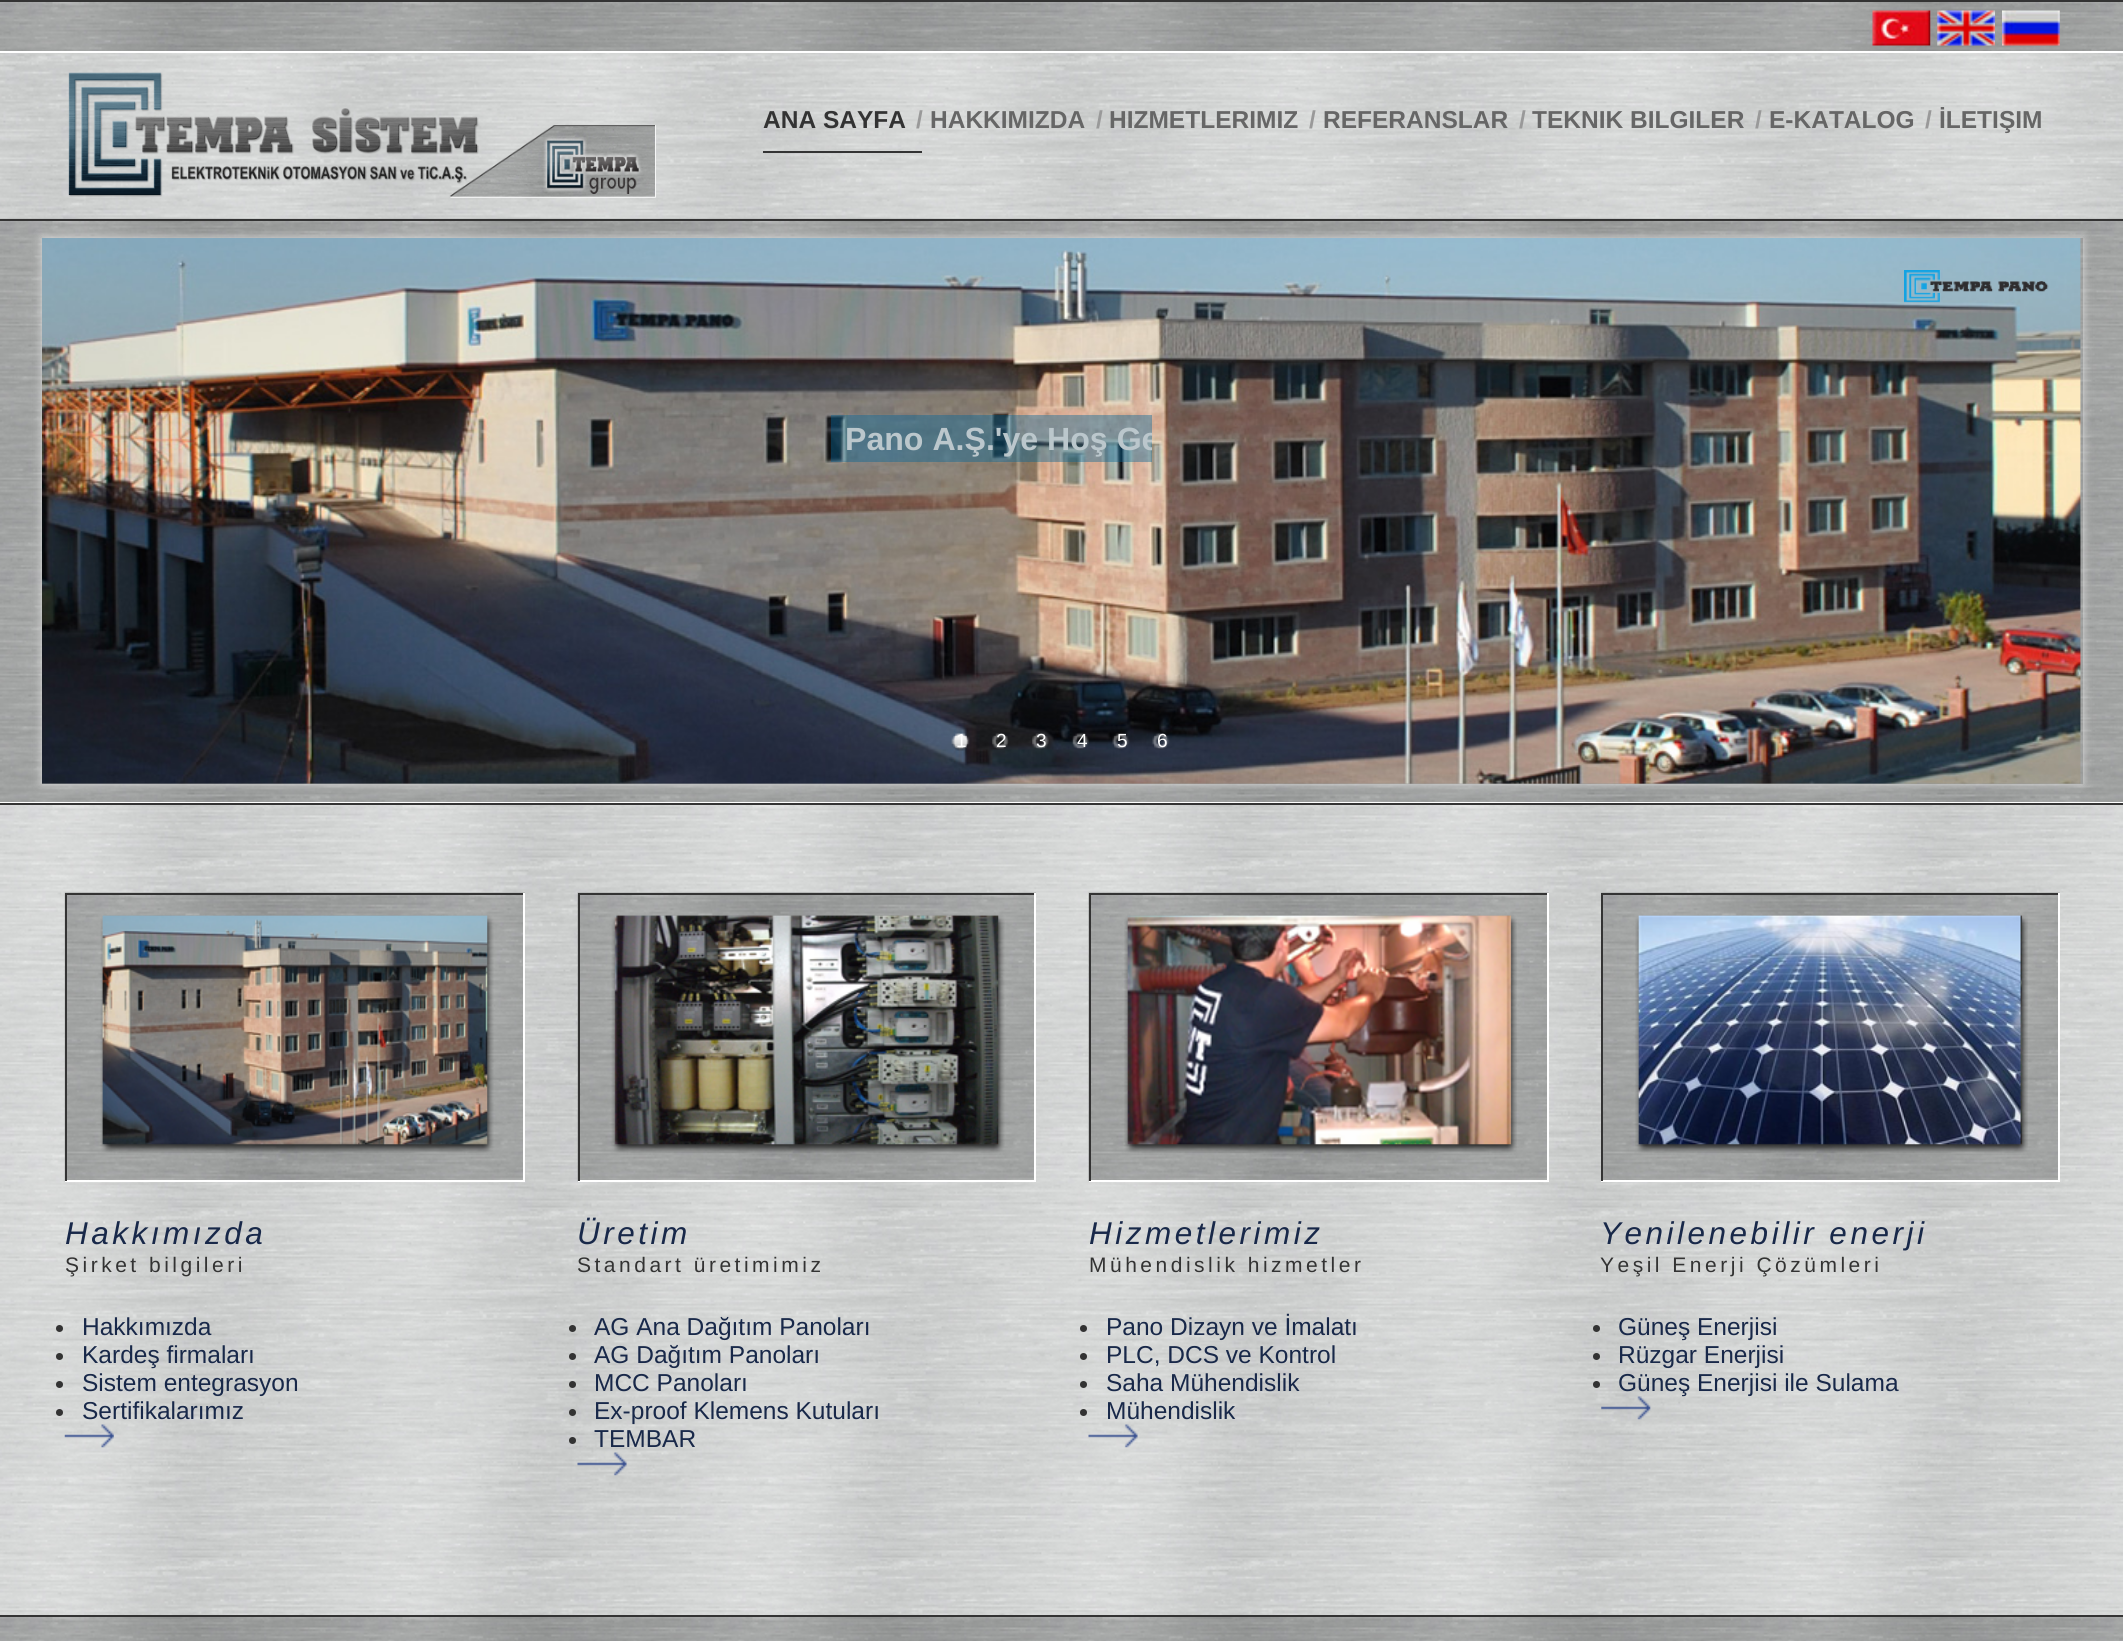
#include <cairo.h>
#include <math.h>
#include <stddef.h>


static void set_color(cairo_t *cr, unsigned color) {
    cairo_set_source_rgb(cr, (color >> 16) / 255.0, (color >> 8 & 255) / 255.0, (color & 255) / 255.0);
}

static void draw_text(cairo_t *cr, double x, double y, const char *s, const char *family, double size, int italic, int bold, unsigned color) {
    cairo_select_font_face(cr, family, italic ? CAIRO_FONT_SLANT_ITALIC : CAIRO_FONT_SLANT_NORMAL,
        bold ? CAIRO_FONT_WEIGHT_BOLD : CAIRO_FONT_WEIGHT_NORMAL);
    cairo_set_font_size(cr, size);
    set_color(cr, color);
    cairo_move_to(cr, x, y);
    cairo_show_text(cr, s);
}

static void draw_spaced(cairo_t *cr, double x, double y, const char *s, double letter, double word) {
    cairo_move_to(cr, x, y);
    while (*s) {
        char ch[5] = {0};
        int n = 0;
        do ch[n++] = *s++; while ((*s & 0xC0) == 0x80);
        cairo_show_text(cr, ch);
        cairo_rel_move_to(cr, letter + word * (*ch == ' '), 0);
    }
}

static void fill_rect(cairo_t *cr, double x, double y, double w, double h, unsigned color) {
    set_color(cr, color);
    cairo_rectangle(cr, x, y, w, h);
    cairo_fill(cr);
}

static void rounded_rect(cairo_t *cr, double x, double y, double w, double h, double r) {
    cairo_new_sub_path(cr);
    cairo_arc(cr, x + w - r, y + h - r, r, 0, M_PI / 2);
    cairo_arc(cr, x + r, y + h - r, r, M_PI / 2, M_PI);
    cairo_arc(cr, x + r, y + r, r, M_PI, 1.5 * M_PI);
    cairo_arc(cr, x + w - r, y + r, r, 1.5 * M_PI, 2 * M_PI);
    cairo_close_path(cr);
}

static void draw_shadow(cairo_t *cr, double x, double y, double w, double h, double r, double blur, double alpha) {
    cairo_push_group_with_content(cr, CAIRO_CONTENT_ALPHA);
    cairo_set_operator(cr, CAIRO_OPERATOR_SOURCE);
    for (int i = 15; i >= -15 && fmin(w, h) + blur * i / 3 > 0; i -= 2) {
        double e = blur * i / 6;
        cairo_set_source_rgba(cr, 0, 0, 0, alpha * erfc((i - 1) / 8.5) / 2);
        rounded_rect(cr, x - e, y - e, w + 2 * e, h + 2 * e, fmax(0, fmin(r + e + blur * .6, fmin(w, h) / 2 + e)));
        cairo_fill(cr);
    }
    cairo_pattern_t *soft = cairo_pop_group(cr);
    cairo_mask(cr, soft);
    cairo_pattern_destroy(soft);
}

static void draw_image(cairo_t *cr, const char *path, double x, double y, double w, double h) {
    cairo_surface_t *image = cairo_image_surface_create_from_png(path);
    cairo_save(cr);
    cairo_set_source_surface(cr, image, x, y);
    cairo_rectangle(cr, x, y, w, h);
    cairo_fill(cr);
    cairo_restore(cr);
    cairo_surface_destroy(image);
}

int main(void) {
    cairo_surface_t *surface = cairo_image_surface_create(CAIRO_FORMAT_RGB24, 2123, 1641);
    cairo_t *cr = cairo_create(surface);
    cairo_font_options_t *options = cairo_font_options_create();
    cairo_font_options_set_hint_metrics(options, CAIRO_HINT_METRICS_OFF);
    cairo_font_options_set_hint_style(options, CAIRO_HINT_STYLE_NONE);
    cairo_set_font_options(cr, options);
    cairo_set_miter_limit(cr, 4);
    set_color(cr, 0xFFFFFF);
    cairo_paint(cr);
    draw_image(cr, "assets/img1.png", 0, 53, 2123, 166);
    draw_image(cr, "assets/img2.png", 0, 2, 2123, 49);
    fill_rect(cr, 0, 0, 2123, 2, 0x333333);
    draw_image(cr, "assets/img3.png", 1872, 10, 59, 36);
    draw_image(cr, "assets/img4.png", 1937, 10, 58, 36);
    draw_image(cr, "assets/img5.png", 2002, 10, 58, 36);
    draw_image(cr, "assets/img6.png", 68, 72, 588, 126);
    fill_rect(cr, 763, 151, 159, 2, 0x333333);
    draw_text(cr, 763, 128, "ANA SAYFA", "Liberation Sans", 24.5, 0, 1, 0x333333);
    draw_text(cr, 916, 128, "/", "Liberation Sans", 24.5, 0, 1, 0x999999);
    draw_text(cr, 930, 128, "HAKKIMIZDA", "Liberation Sans", 24.5, 0, 1, 0x666666);
    draw_text(cr, 1096, 128, "/", "Liberation Sans", 24.5, 0, 1, 0x999999);
    draw_text(cr, 1109, 128, "HIZMETLERIMIZ", "Liberation Sans", 24.5, 0, 1, 0x666666);
    draw_text(cr, 1309, 128, "/", "Liberation Sans", 24.5, 0, 1, 0x999999);
    draw_text(cr, 1323, 128, "REFERANSLAR", "Liberation Sans", 24.5, 0, 1, 0x666666);
    draw_text(cr, 1519, 128, "/", "Liberation Sans", 24.5, 0, 1, 0x999999);
    draw_text(cr, 1532, 128, "TEKNIK BILGILER", "Liberation Sans", 24.5, 0, 1, 0x666666);
    draw_text(cr, 1755, 128, "/", "Liberation Sans", 24.5, 0, 1, 0x999999);
    draw_text(cr, 1769, 128, "E-KATALOG", "Liberation Sans", 24.5, 0, 1, 0x666666);
    draw_text(cr, 1925, 128, "/", "Liberation Sans", 24.5, 0, 1, 0x999999);
    draw_text(cr, 1939, 128, "İLETIŞIM", "Liberation Sans", 24.5, 0, 1, 0x666666);
    draw_image(cr, "assets/img7.png", 0, 218, 2123, 584);
    fill_rect(cr, 0, 219, 2123, 2, 0x333333);
    cairo_save(cr);
    cairo_set_fill_rule(cr, CAIRO_FILL_RULE_EVEN_ODD);
    cairo_new_path(cr);
    cairo_move_to(cr, 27, 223);
    cairo_line_to(cr, 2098, 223);
    cairo_line_to(cr, 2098, 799);
    cairo_line_to(cr, 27, 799);
    cairo_close_path(cr);
    cairo_move_to(cr, 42, 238);
    cairo_line_to(cr, 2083, 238);
    cairo_line_to(cr, 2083, 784);
    cairo_line_to(cr, 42, 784);
    cairo_close_path(cr);
    cairo_clip(cr);
    set_color(cr, 0xDDDDDD);
    draw_shadow(cr, 42, 238, 2041, 546, 0, 4.5, 1);
    cairo_restore(cr);
    draw_image(cr, "assets/img9.png", 42, 238, 2039, 546);
    draw_image(cr, "assets/img8.png", 1904, 270, 145, 33);
    cairo_set_source_rgba(cr, 0, 0.4, 0.6, 0.4);
    cairo_rectangle(cr, 831, 415, 321, 47);
    cairo_fill(cr);
    cairo_save(cr);
    cairo_rectangle(cr, 831, 415, 321, 47);
    cairo_clip(cr);
    draw_text(cr, 845, 450, "Pano A.Ş.'ye Hoş Ge", "Liberation Sans", 32.1, 0, 1, 0xBBC7CC);
    cairo_restore(cr);
    draw_image(cr, "assets/img10.png", 951, 733, 19, 18);
    draw_text(cr, 956, 747, "1", "Liberation Sans", 19, 0, 0, 0xFFFFFF);
    draw_image(cr, "assets/img11.png", 992, 733, 17, 16);
    draw_text(cr, 996, 747, "2", "Liberation Sans", 19, 0, 0, 0xFFFFFF);
    draw_image(cr, "assets/img12.png", 1032, 733, 17, 16);
    draw_text(cr, 1036, 747, "3", "Liberation Sans", 19, 0, 0, 0xFFFFFF);
    draw_image(cr, "assets/img13.png", 1072, 733, 17, 17);
    draw_text(cr, 1077, 747, "4", "Liberation Sans", 19, 0, 0, 0xFFFFFF);
    draw_image(cr, "assets/img14.png", 1112, 733, 18, 17);
    draw_text(cr, 1117, 747, "5", "Liberation Sans", 19, 0, 0, 0xFFFFFF);
    draw_image(cr, "assets/img15.png", 1152, 733, 18, 17);
    draw_text(cr, 1157, 747, "6", "Liberation Sans", 19, 0, 0, 0xFFFFFF);
    fill_rect(cr, 0, 803, 2123, 2, 0x333333);
    draw_image(cr, "assets/img16.png", 0, 805, 2123, 810);
    draw_image(cr, "assets/img17.png", 64, 892, 461, 290);
    fill_rect(cr, 65, 893, 460, 2, 0x333333);
    fill_rect(cr, 523, 893, 2, 288, 0xFFFFFF);
    fill_rect(cr, 65, 1180, 460, 2, 0xFFFFFF);
    fill_rect(cr, 65, 893, 2, 288, 0x333333);
    draw_image(cr, "assets/img18.png", 100, 915, 394, 238);
    cairo_select_font_face(cr, "Liberation Sans", CAIRO_FONT_SLANT_ITALIC, CAIRO_FONT_WEIGHT_NORMAL);
    cairo_set_font_size(cr, 31.5);
    set_color(cr, 0x182849);
    draw_spaced(cr, 65, 1244, "Hakkımızda", 3.5, 0);
    cairo_select_font_face(cr, "Liberation Sans", CAIRO_FONT_SLANT_NORMAL, CAIRO_FONT_WEIGHT_NORMAL);
    cairo_set_font_size(cr, 21);
    set_color(cr, 0x333333);
    draw_spaced(cr, 65, 1272, "Şirket bilgileri", 3.5, 0);
    cairo_new_path(cr);
    cairo_arc(cr, 59.5, 1328.5, 3.5, 0, 2 * M_PI);
    cairo_fill(cr);
    draw_text(cr, 82, 1335, "Hakkımızda", "Liberation Sans", 24.5, 0, 0, 0x182849);
    set_color(cr, 0x333333);
    cairo_new_path(cr);
    cairo_arc(cr, 59.5, 1356.5, 3.5, 0, 2 * M_PI);
    cairo_fill(cr);
    draw_text(cr, 82, 1363, "Kardeş firmaları", "Liberation Sans", 24.5, 0, 0, 0x182849);
    set_color(cr, 0x333333);
    cairo_new_path(cr);
    cairo_arc(cr, 59.5, 1384.5, 3.5, 0, 2 * M_PI);
    cairo_fill(cr);
    draw_text(cr, 82, 1391, "Sistem entegrasyon", "Liberation Sans", 24.5, 0, 0, 0x182849);
    set_color(cr, 0x333333);
    cairo_new_path(cr);
    cairo_arc(cr, 59.5, 1412.5, 3.5, 0, 2 * M_PI);
    cairo_fill(cr);
    draw_text(cr, 82, 1419, "Sertifikalarımız", "Liberation Sans", 24.5, 0, 0, 0x182849);
    draw_image(cr, "assets/img19.png", 64, 1424, 50, 24);
    draw_image(cr, "assets/img20.png", 577, 892, 459, 290);
    fill_rect(cr, 578, 893, 458, 2, 0x333333);
    fill_rect(cr, 1034, 893, 2, 288, 0xFFFFFF);
    fill_rect(cr, 578, 1180, 458, 2, 0xFFFFFF);
    fill_rect(cr, 578, 893, 2, 288, 0x333333);
    draw_image(cr, "assets/img21.png", 611, 915, 394, 238);
    cairo_select_font_face(cr, "Liberation Sans", CAIRO_FONT_SLANT_ITALIC, CAIRO_FONT_WEIGHT_NORMAL);
    cairo_set_font_size(cr, 31.5);
    set_color(cr, 0x182849);
    draw_spaced(cr, 577, 1244, "Üretim", 3.5, 0);
    cairo_select_font_face(cr, "Liberation Sans", CAIRO_FONT_SLANT_NORMAL, CAIRO_FONT_WEIGHT_NORMAL);
    cairo_set_font_size(cr, 21);
    set_color(cr, 0x333333);
    draw_spaced(cr, 577, 1272, "Standart üretimimiz", 3.5, 0);
    cairo_new_path(cr);
    cairo_arc(cr, 572.5, 1328.5, 3.5, 0, 2 * M_PI);
    cairo_fill(cr);
    draw_text(cr, 594, 1335, "AG Ana Dağıtım Panoları", "Liberation Sans", 24.5, 0, 0, 0x182849);
    set_color(cr, 0x333333);
    cairo_new_path(cr);
    cairo_arc(cr, 572.5, 1356.5, 3.5, 0, 2 * M_PI);
    cairo_fill(cr);
    draw_text(cr, 594, 1363, "AG Dağıtım Panoları", "Liberation Sans", 24.5, 0, 0, 0x182849);
    set_color(cr, 0x333333);
    cairo_new_path(cr);
    cairo_arc(cr, 572.5, 1384.5, 3.5, 0, 2 * M_PI);
    cairo_fill(cr);
    draw_text(cr, 594, 1391, "MCC Panoları", "Liberation Sans", 24.5, 0, 0, 0x182849);
    set_color(cr, 0x333333);
    cairo_new_path(cr);
    cairo_arc(cr, 572.5, 1412.5, 3.5, 0, 2 * M_PI);
    cairo_fill(cr);
    draw_text(cr, 594, 1419, "Ex-proof Klemens Kutuları", "Liberation Sans", 24.5, 0, 0, 0x182849);
    set_color(cr, 0x333333);
    cairo_new_path(cr);
    cairo_arc(cr, 572.5, 1440.5, 3.5, 0, 2 * M_PI);
    cairo_fill(cr);
    draw_text(cr, 594, 1447, "TEMBAR", "Liberation Sans", 24.5, 0, 0, 0x182849);
    draw_image(cr, "assets/img22.png", 577, 1452, 50, 24);
    draw_image(cr, "assets/img23.png", 1088, 892, 461, 290);
    fill_rect(cr, 1089, 893, 460, 2, 0x333333);
    fill_rect(cr, 1547, 893, 2, 288, 0xFFFFFF);
    fill_rect(cr, 1089, 1180, 460, 2, 0xFFFFFF);
    fill_rect(cr, 1089, 893, 2, 288, 0x333333);
    draw_image(cr, "assets/img24.png", 1124, 915, 393, 238);
    cairo_select_font_face(cr, "Liberation Sans", CAIRO_FONT_SLANT_ITALIC, CAIRO_FONT_WEIGHT_NORMAL);
    cairo_set_font_size(cr, 31.5);
    set_color(cr, 0x182849);
    draw_spaced(cr, 1089, 1244, "Hizmetlerimiz", 3.5, 0);
    cairo_select_font_face(cr, "Liberation Sans", CAIRO_FONT_SLANT_NORMAL, CAIRO_FONT_WEIGHT_NORMAL);
    cairo_set_font_size(cr, 21);
    set_color(cr, 0x333333);
    draw_spaced(cr, 1089, 1272, "Mühendislik hizmetler", 3.5, 0);
    cairo_new_path(cr);
    cairo_arc(cr, 1083.5, 1328.5, 3.5, 0, 2 * M_PI);
    cairo_fill(cr);
    draw_text(cr, 1106, 1335, "Pano Dizayn ve İmalatı", "Liberation Sans", 24.5, 0, 0, 0x182849);
    set_color(cr, 0x333333);
    cairo_new_path(cr);
    cairo_arc(cr, 1083.5, 1356.5, 3.5, 0, 2 * M_PI);
    cairo_fill(cr);
    draw_text(cr, 1106, 1363, "PLC, DCS ve Kontrol", "Liberation Sans", 24.5, 0, 0, 0x182849);
    set_color(cr, 0x333333);
    cairo_new_path(cr);
    cairo_arc(cr, 1083.5, 1384.5, 3.5, 0, 2 * M_PI);
    cairo_fill(cr);
    draw_text(cr, 1106, 1391, "Saha Mühendislik", "Liberation Sans", 24.5, 0, 0, 0x182849);
    set_color(cr, 0x333333);
    cairo_new_path(cr);
    cairo_arc(cr, 1083.5, 1412.5, 3.5, 0, 2 * M_PI);
    cairo_fill(cr);
    draw_text(cr, 1106, 1419, "Mühendislik", "Liberation Sans", 24.5, 0, 0, 0x182849);
    draw_image(cr, "assets/img25.png", 1088, 1424, 50, 24);
    draw_image(cr, "assets/img26.png", 1601, 892, 459, 288);
    fill_rect(cr, 1601, 893, 459, 2, 0x333333);
    fill_rect(cr, 2058, 893, 2, 288, 0xFFFFFF);
    fill_rect(cr, 1601, 1180, 459, 2, 0xFFFFFF);
    fill_rect(cr, 1601, 893, 2, 288, 0x333333);
    draw_image(cr, "assets/img27.png", 1635, 915, 393, 238);
    cairo_select_font_face(cr, "Liberation Sans", CAIRO_FONT_SLANT_ITALIC, CAIRO_FONT_WEIGHT_NORMAL);
    cairo_set_font_size(cr, 31.5);
    set_color(cr, 0x182849);
    draw_spaced(cr, 1600, 1244, "Yenilenebilir enerji", 3.5, 0);
    cairo_select_font_face(cr, "Liberation Sans", CAIRO_FONT_SLANT_NORMAL, CAIRO_FONT_WEIGHT_NORMAL);
    cairo_set_font_size(cr, 21);
    set_color(cr, 0x333333);
    draw_spaced(cr, 1600, 1272, "Yeşil Enerji Çözümleri", 3.5, 0);
    cairo_new_path(cr);
    cairo_arc(cr, 1596.5, 1328.5, 3.5, 0, 2 * M_PI);
    cairo_fill(cr);
    draw_text(cr, 1618, 1335, "Güneş Enerjisi", "Liberation Sans", 24.5, 0, 0, 0x182849);
    set_color(cr, 0x333333);
    cairo_new_path(cr);
    cairo_arc(cr, 1596.5, 1356.5, 3.5, 0, 2 * M_PI);
    cairo_fill(cr);
    draw_text(cr, 1618, 1363, "Rüzgar Enerjisi", "Liberation Sans", 24.5, 0, 0, 0x182849);
    set_color(cr, 0x333333);
    cairo_new_path(cr);
    cairo_arc(cr, 1596.5, 1384.5, 3.5, 0, 2 * M_PI);
    cairo_fill(cr);
    draw_text(cr, 1618, 1391, "Güneş Enerjisi ile Sulama", "Liberation Sans", 24.5, 0, 0, 0x182849);
    draw_image(cr, "assets/img28.png", 1601, 1396, 50, 24);
    draw_image(cr, "assets/img29.png", 0, 1617, 2123, 24);
    fill_rect(cr, 0, 1615, 2123, 2, 0x333333);
    cairo_surface_write_to_png(surface, "output.png");
    cairo_font_options_destroy(options);
    cairo_destroy(cr);
    cairo_surface_destroy(surface);
    return 0;
}
